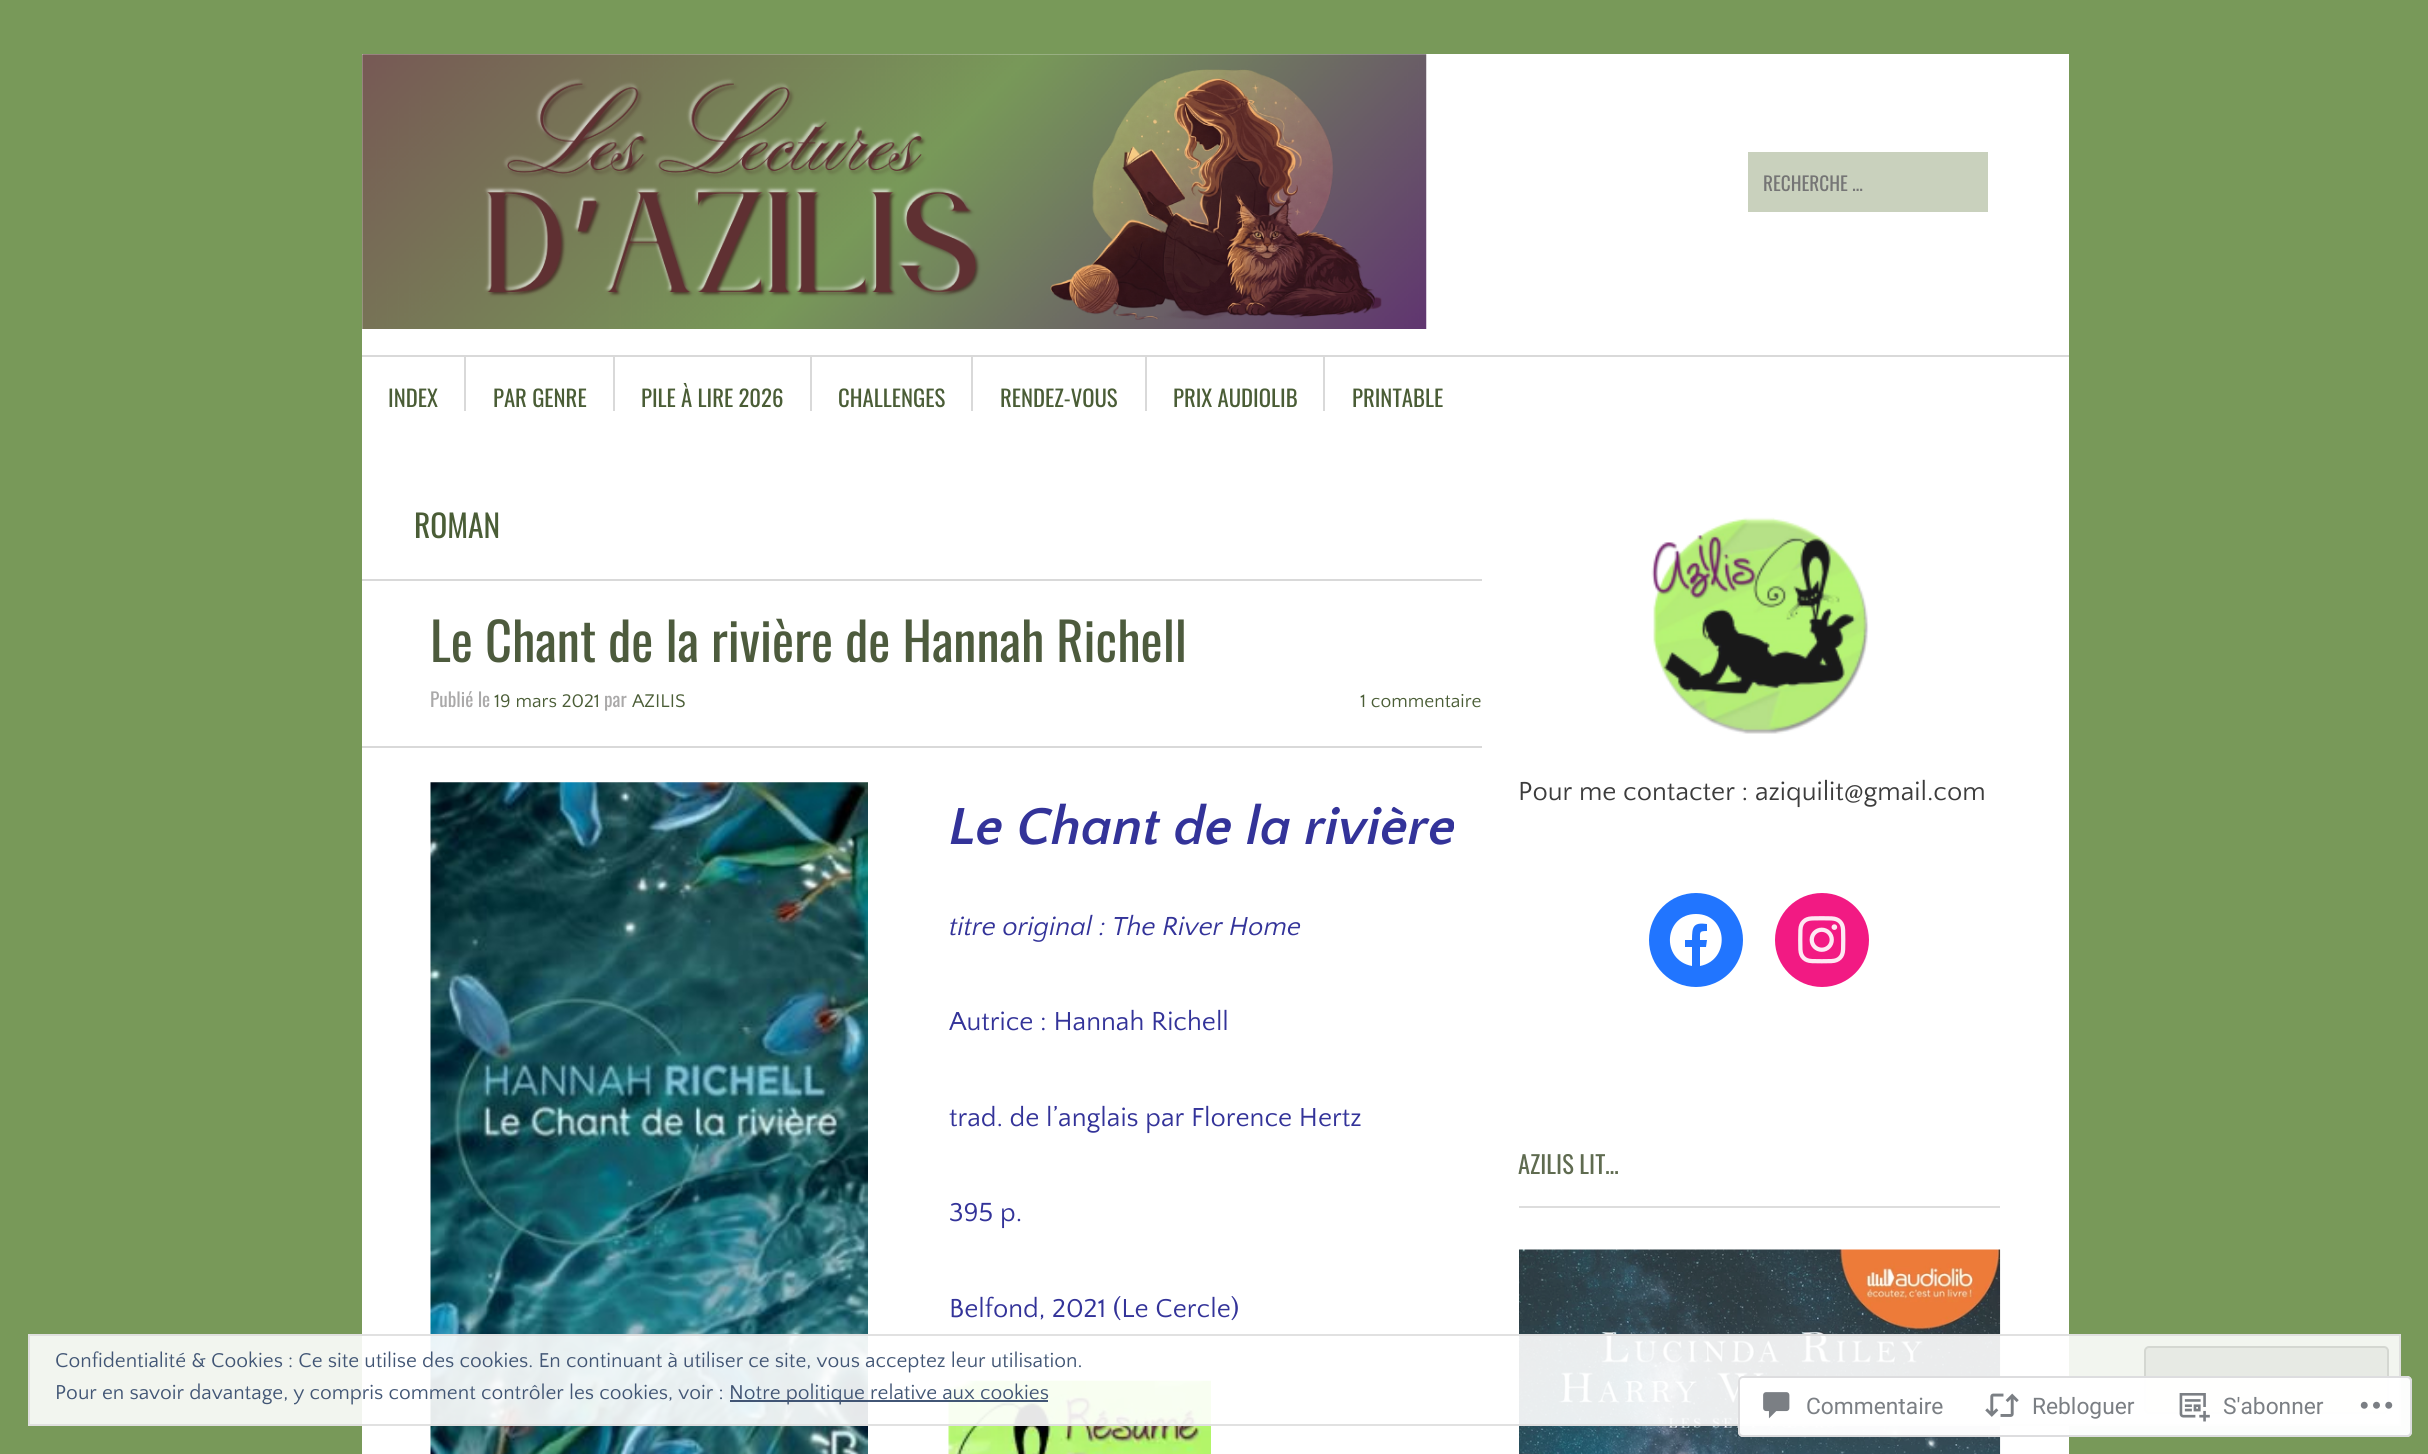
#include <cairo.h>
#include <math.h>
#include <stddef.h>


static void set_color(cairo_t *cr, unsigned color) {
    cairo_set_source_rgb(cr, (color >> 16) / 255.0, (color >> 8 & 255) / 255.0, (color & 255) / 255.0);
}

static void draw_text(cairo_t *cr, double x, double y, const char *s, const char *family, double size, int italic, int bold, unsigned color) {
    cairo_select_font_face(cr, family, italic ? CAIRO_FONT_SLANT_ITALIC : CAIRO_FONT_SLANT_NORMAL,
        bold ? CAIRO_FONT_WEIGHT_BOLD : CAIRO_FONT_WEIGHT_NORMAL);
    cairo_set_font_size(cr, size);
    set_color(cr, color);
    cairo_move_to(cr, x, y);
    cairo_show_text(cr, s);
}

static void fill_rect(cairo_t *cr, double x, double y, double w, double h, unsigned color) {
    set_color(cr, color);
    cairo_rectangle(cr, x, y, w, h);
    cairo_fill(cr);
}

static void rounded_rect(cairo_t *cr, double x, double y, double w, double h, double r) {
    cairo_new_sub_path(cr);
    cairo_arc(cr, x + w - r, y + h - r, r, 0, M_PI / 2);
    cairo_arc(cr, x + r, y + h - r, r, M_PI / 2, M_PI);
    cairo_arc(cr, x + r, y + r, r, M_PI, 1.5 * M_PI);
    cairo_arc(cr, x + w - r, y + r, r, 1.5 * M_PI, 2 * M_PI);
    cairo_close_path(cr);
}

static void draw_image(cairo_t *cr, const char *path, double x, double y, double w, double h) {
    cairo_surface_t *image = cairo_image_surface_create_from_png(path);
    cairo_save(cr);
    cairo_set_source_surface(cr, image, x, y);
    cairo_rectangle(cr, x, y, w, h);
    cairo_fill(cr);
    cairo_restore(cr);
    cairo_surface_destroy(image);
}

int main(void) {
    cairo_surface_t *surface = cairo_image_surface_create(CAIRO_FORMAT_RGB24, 2428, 1454);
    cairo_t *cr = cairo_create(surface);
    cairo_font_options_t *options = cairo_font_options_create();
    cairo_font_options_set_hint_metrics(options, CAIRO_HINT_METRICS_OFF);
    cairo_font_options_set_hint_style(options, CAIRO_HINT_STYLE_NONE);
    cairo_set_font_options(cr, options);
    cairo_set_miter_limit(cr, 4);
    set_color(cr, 0x789959);
    cairo_paint(cr);
    fill_rect(cr, 362, 54, 1707, 1400, 0xFFFFFF);
    draw_image(cr, "assets/img1.png", 362, 54, 1065, 275);
    fill_rect(cr, 1748, 152, 240, 60, 0xC9D1BD);
    draw_text(cr, 1763, 191, "RECHERCHE …", "Oswald", 19.25, 0, 0, 0x757575);
    fill_rect(cr, 362, 355, 1707, 2, 0xD9D9D9);
    draw_text(cr, 388, 407, "INDEX", "Oswald", 22.75, 0, 0, 0x4A5D36);
    fill_rect(cr, 464, 357, 2, 54, 0xD9D9D9);
    draw_text(cr, 493, 407, "PAR GENRE", "Oswald", 22.75, 0, 0, 0x4A5D36);
    fill_rect(cr, 613, 357, 2, 54, 0xD9D9D9);
    draw_text(cr, 641, 407, "PILE À LIRE 2026", "Oswald", 22.75, 0, 0, 0x4A5D36);
    fill_rect(cr, 810, 357, 2, 54, 0xD9D9D9);
    draw_text(cr, 838, 407, "CHALLENGES", "Oswald", 22.75, 0, 0, 0x4A5D36);
    fill_rect(cr, 971, 357, 2, 54, 0xD9D9D9);
    draw_text(cr, 1000, 407, "RENDEZ-VOUS", "Oswald", 22.75, 0, 0, 0x4A5D36);
    fill_rect(cr, 1145, 357, 2, 54, 0xD9D9D9);
    draw_text(cr, 1173, 407, "PRIX AUDIOLIB", "Oswald", 22.75, 0, 0, 0x4A5D36);
    fill_rect(cr, 1323, 357, 2, 54, 0xD9D9D9);
    draw_text(cr, 1352, 407, "PRINTABLE", "Oswald", 22.75, 0, 0, 0x4A5D36);
    fill_rect(cr, 362, 579, 1120, 2, 0xD9D9D9);
    draw_text(cr, 414, 538, "ROMAN", "Oswald", 31.5, 0, 0, 0x4A5D36);
    fill_rect(cr, 362, 746, 1120, 2, 0xD9D9D9);
    draw_text(cr, 430, 662, "Le Chant de la rivière de Hannah Richell", "Oswald", 52.5, 0, 0, 0x4D5B3D);
    draw_text(cr, 430, 707, "Publié le", "Oswald", 19.25, 0, 0, 0xAAA9A9);
    draw_text(cr, 494, 707, "19 mars 2021", "Quattrocento Sans", 19.25, 0, 0, 0x4A5D36);
    draw_text(cr, 604, 707, "par", "Oswald", 19.25, 0, 0, 0xAAA9A9);
    draw_text(cr, 632, 707, "AZILIS", "Quattrocento Sans", 19.25, 0, 0, 0x4A5D36);
    draw_text(cr, 1360, 707, "1 commentaire", "Quattrocento Sans", 19.25, 0, 0, 0x4A5D36);
    draw_image(cr, "assets/img2.png", 430, 782, 438, 672);
    draw_text(cr, 949, 844, "Le Chant de la rivière", "Quattrocento Sans", 54.5, 1, 1, 0x333399);
    draw_text(cr, 949, 935, "titre original : The River Home", "Quattrocento Sans", 27.25, 1, 0, 0x333399);
    draw_text(cr, 949, 1030, "Autrice : Hannah Richell", "Quattrocento Sans", 27.25, 0, 0, 0x333399);
    draw_text(cr, 949, 1126, "trad. de l’anglais par Florence Hertz", "Quattrocento Sans", 27.25, 0, 0, 0x333399);
    draw_text(cr, 949, 1221, "395 p.", "Quattrocento Sans", 27.25, 0, 0, 0x333399);
    draw_text(cr, 949, 1317, "Belfond, 2021 (Le Cercle)", "Quattrocento Sans", 27.25, 0, 0, 0x333399);
    draw_image(cr, "assets/img3.png", 948, 1380, 263, 74);
    draw_image(cr, "assets/img4.png", 1651, 517, 218, 217);
    draw_text(cr, 1518, 800, "Pour me contacter : aziquilit@gmail.com", "Quattrocento Sans", 27.25, 0, 0, 0x3C3C3C);
    set_color(cr, 0x2175FF);
    cairo_new_path(cr);
    cairo_arc(cr, 1696, 940, 47, 0, 2 * M_PI);
    cairo_fill(cr);
    set_color(cr, 0xFFFFFF);
    cairo_new_path(cr);
    cairo_move_to(cr, 1696, 914);
    cairo_curve_to(cr, 1664, 914, 1660, 960, 1692, 966);
    cairo_line_to(cr, 1692, 947);
    cairo_line_to(cr, 1685, 947);
    cairo_line_to(cr, 1685, 940);
    cairo_line_to(cr, 1692, 940);
    cairo_curve_to(cr, 1692, 927, 1693, 922, 1707, 924);
    cairo_line_to(cr, 1707, 931);
    cairo_curve_to(cr, 1699, 931, 1700, 932, 1700, 940);
    cairo_line_to(cr, 1707, 940);
    cairo_line_to(cr, 1706, 947);
    cairo_line_to(cr, 1700, 947);
    cairo_line_to(cr, 1700, 966);
    cairo_curve_to(cr, 1731, 960, 1728, 914, 1696, 914);
    cairo_close_path(cr);
    cairo_fill(cr);
    set_color(cr, 0xF21A83);
    cairo_arc(cr, 1822, 940, 47, 0, 2 * M_PI);
    cairo_fill(cr);
    draw_image(cr, "assets/img5.png", 1798, 916, 48, 48);
    fill_rect(cr, 1519, 1206, 481, 2, 0xDDDDDD);
    draw_text(cr, 1518, 1174, "AZILIS LIT…", "Oswald", 24.5, 0, 0, 0x5F6B50);
    draw_image(cr, "assets/img6.png", 1519, 1249, 482, 205);
    cairo_set_source_rgba(cr, 1, 1, 1, 0.9);
    cairo_rectangle(cr, 28, 1334, 2373, 92);
    cairo_fill(cr);
    cairo_rectangle(cr, 29, 1335, 2371, 90);
    cairo_set_source_rgba(cr, 0.871, 0.871, 0.871, 0.9);
    cairo_stroke(cr);
    draw_text(cr, 55, 1367, "Confidentialité & Cookies : Ce site utilise des cookies. En continuant à utiliser ce site, vous acceptez leur utilisation.", "Quattrocento Sans", 21, 0, 0, 0x425675);
    set_color(cr, 0xE7EAE4);
    rounded_rect(cr, 2145, 1347, 243, 66, 4);
    cairo_fill_preserve(cr);
    set_color(cr, 0xD4D7D1);
    cairo_stroke(cr);
    draw_text(cr, 55, 1399, "Pour en savoir davantage, y compris comment contrôler les cookies, voir :", "Quattrocento Sans", 21, 0, 0, 0x425675);
    cairo_set_source_rgba(cr, 0.18, 0.267, 0.404, 0.9);
    cairo_rectangle(cr, 730, 1400, 318, 2);
    cairo_fill(cr);
    draw_text(cr, 729, 1399, "Notre politique relative aux cookies", "Quattrocento Sans", 21, 0, 0, 0x425675);
    cairo_set_source_rgba(cr, 1, 1, 1, 0.98);
    rounded_rect(cr, 1738, 1376, 674, 61, 5);
    cairo_fill(cr);
    rounded_rect(cr, 1739, 1377, 672, 59, 4);
    cairo_set_source_rgba(cr, 0.863, 0.863, 0.871, 0.98);
    cairo_stroke(cr);
    draw_image(cr, "assets/img7.png", 1763, 1392, 27, 27);
    draw_text(cr, 1806, 1414, "Commentaire", "Roboto", 22.75, 0, 0, 0x7B7F84);
    draw_image(cr, "assets/img8.png", 1985, 1393, 34, 24);
    draw_text(cr, 2032, 1414, "Rebloguer", "Roboto", 22.75, 0, 0, 0x7B7F84);
    draw_image(cr, "assets/img9.png", 2179, 1393, 31, 29);
    draw_text(cr, 2223, 1414, "S'abonner", "Roboto", 22.75, 0, 0, 0x7B7F84);
    draw_image(cr, "assets/img10.png", 2360, 1401, 33, 8);
    cairo_surface_write_to_png(surface, "output.png");
    cairo_font_options_destroy(options);
    cairo_destroy(cr);
    cairo_surface_destroy(surface);
    return 0;
}
